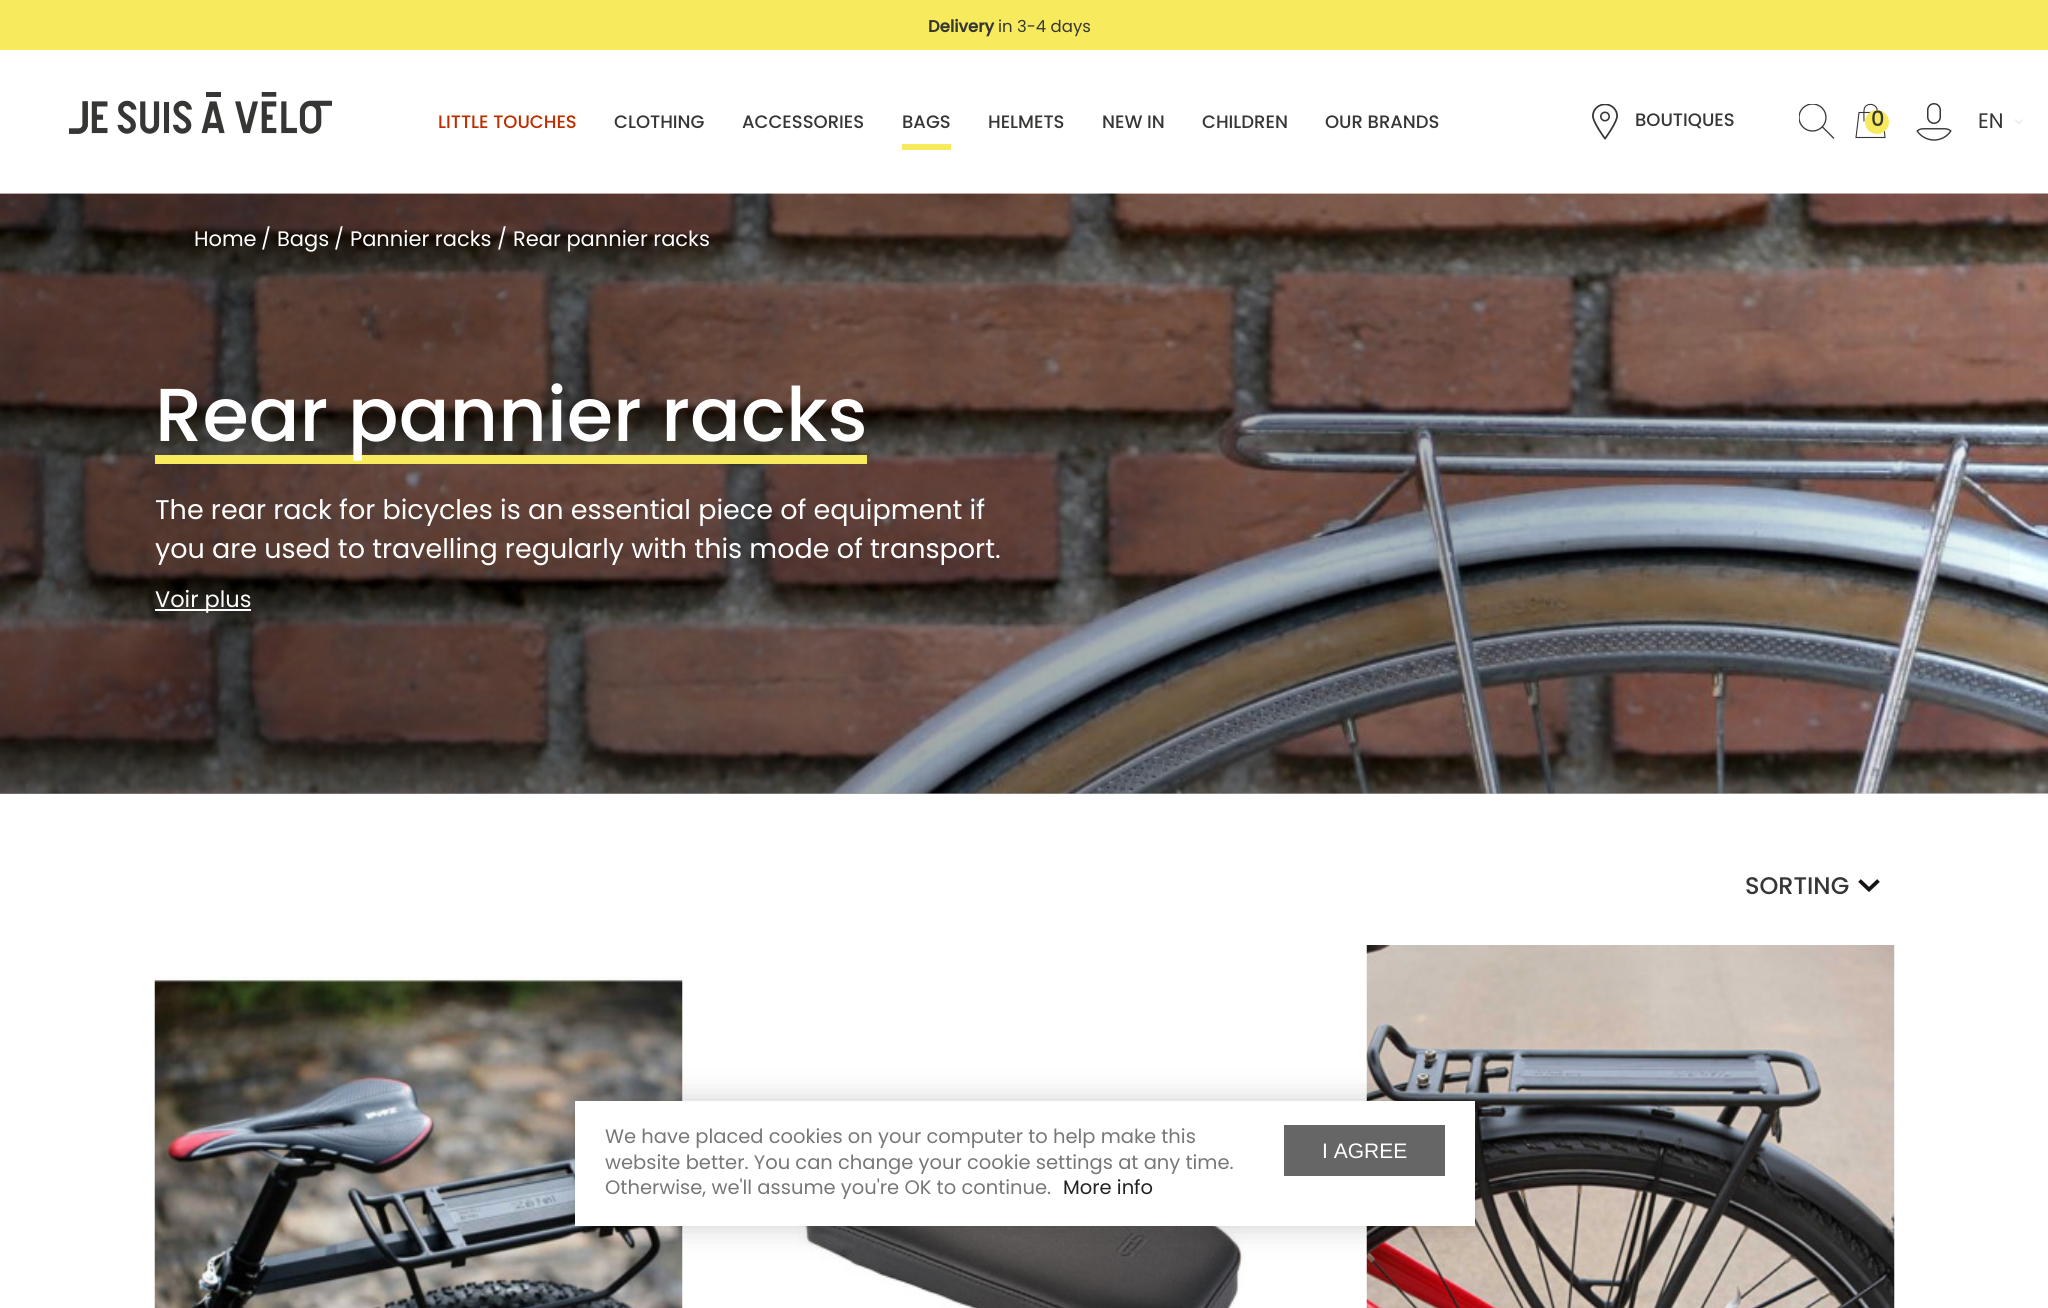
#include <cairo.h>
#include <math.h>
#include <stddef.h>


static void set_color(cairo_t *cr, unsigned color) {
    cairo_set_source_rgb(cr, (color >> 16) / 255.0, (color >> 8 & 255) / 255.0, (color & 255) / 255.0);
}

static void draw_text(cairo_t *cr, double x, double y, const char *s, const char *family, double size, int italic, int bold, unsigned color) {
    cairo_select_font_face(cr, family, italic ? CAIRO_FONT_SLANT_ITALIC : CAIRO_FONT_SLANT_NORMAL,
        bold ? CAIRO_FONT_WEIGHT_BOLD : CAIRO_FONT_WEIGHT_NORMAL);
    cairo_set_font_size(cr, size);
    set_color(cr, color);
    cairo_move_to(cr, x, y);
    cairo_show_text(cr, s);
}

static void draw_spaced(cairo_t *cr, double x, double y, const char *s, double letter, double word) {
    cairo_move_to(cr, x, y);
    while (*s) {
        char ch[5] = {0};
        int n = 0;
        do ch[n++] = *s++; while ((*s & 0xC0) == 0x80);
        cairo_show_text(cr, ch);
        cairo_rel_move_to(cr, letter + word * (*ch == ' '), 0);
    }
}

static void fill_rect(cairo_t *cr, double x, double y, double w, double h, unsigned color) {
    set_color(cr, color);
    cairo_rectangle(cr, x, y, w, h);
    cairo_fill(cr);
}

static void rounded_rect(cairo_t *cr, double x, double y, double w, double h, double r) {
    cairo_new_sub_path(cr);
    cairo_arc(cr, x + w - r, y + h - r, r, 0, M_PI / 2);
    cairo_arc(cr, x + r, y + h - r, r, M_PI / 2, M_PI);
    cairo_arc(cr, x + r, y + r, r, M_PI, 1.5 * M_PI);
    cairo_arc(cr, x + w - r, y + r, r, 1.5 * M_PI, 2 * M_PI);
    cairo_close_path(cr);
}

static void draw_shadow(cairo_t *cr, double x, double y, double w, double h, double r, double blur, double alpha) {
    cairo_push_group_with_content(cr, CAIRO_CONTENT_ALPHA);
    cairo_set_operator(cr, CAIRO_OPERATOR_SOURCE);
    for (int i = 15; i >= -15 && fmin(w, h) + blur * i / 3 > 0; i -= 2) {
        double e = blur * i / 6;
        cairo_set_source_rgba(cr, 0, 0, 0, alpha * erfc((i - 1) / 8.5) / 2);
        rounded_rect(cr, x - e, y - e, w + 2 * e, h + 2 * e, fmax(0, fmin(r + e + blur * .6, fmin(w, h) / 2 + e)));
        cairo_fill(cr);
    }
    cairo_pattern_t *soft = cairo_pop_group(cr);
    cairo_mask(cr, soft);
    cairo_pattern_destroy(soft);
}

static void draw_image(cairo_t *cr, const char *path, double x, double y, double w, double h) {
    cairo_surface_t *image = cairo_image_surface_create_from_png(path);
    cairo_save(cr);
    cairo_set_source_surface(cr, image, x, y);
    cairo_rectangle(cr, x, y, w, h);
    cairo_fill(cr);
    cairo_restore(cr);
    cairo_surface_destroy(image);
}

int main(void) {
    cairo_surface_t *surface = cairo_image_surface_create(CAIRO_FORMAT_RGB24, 2048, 1308);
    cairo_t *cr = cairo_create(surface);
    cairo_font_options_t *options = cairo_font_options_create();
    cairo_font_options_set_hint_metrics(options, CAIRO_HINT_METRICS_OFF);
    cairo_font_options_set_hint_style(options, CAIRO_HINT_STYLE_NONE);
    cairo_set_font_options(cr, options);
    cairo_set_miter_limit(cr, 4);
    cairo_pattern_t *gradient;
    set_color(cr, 0xFFFFFF);
    cairo_paint(cr);
    fill_rect(cr, 0, 0, 2048, 50, 0xF7EB5D);
    draw_text(cr, 928, 32, "Delivery", "Poppins", 16.5, 0, 1, 0x363635);
    draw_text(cr, 998, 32, "in 3-4 days", "Poppins", 16.5, 0, 0, 0x363635);
    draw_image(cr, "assets/img1.png", 69, 92, 263, 42);
    draw_text(cr, 438, 128, "LITTLE TOUCHES", "Poppins Medium", 18, 0, 0, 0xBD2D00);
    draw_text(cr, 614, 128, "CLOTHING", "Poppins Medium", 18, 0, 0, 0x363635);
    draw_text(cr, 742, 128, "ACCESSORIES", "Poppins Medium", 18, 0, 0, 0x363635);
    draw_text(cr, 902, 128, "BAGS", "Poppins Medium", 18, 0, 0, 0x363635);
    fill_rect(cr, 902, 144, 49, 6, 0xF7EB5D);
    draw_text(cr, 988, 128, "HELMETS", "Poppins Medium", 18, 0, 0, 0x363635);
    draw_text(cr, 1102, 128, "NEW IN", "Poppins Medium", 18, 0, 0, 0x363635);
    draw_text(cr, 1202, 128, "CHILDREN", "Poppins Medium", 18, 0, 0, 0x363635);
    draw_text(cr, 1325, 128, "OUR BRANDS", "Poppins Medium", 18, 0, 0, 0x363635);
    draw_image(cr, "assets/img2.png", 1592, 104, 26, 36);
    draw_text(cr, 1635, 126, "BOUTIQUES", "Poppins Medium", 18, 0, 0, 0x363635);
    cairo_new_path(cr);
    cairo_move_to(cr, 1822, 126.5);
    cairo_line_to(cr, 1834, 138.5);
    cairo_set_line_width(cr, 1.3);
    cairo_stroke(cr);
    cairo_save(cr);
    cairo_rectangle(cr, 1799, 104, 36, 36);
    cairo_clip(cr);
    cairo_arc(cr, 1812.5, 117.5, 13.5, 0, 2 * M_PI);
    cairo_stroke(cr);
    cairo_restore(cr);
    cairo_new_path(cr);
    cairo_move_to(cr, 1856, 137.5);
    cairo_line_to(cr, 1859, 112.5);
    cairo_line_to(cr, 1882.5, 112.5);
    cairo_line_to(cr, 1885, 137.5);
    cairo_close_path(cr);
    cairo_set_line_width(cr, 1.1);
    cairo_stroke(cr);
    cairo_new_path(cr);
    cairo_move_to(cr, 1864, 121);
    cairo_curve_to(cr, 1864, 118, 1863.5, 110.5, 1864.5, 108);
    cairo_curve_to(cr, 1866.5, 103, 1875, 103, 1877, 109);
    cairo_line_to(cr, 1877, 121);
    cairo_set_line_cap(cr, CAIRO_LINE_CAP_ROUND);
    cairo_stroke(cr);
    set_color(cr, 0xF7EB5D);
    cairo_arc(cr, 1877, 122, 12, 0, 2 * M_PI);
    cairo_fill(cr);
    cairo_set_font_size(cr, 21);
    set_color(cr, 0x363635);
    draw_spaced(cr, 1871, 126, "0", 2, 0);
    draw_image(cr, "assets/img3.png", 1916, 103, 36, 38);
    draw_text(cr, 1978, 128, "EN", "Poppins", 21, 0, 0, 0x363635);
    cairo_new_path(cr);
    cairo_move_to(cr, 2015, 119.5);
    cairo_line_to(cr, 2019, 123.5);
    cairo_line_to(cr, 2023, 119.5);
    set_color(cr, 0xE9EDEA);
    cairo_set_line_width(cr, 1.5);
    cairo_set_line_cap(cr, CAIRO_LINE_CAP_BUTT);
    cairo_stroke(cr);
    draw_image(cr, "assets/img4.png", 0, 193, 2048, 601);
    gradient = cairo_pattern_create_linear(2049, 493, 0, 494);
    cairo_pattern_add_color_stop_rgba(gradient, 0, 0, 0, 0, 0);
    cairo_pattern_add_color_stop_rgba(gradient, 0.21, 0, 0, 0, 0.24);
    cairo_pattern_add_color_stop_rgba(gradient, 1, 0, 0, 0, 0.47);
    cairo_set_source(cr, gradient);
    cairo_pattern_destroy(gradient);
    cairo_rectangle(cr, 0, 194, 2010, 600);
    cairo_fill(cr);
    draw_text(cr, 194, 246, "Home", "Poppins", 21, 0, 0, 0xFFFFFF);
    draw_text(cr, 261, 246, "/", "Poppins", 21, 0, 0, 0xFFFFFF);
    draw_text(cr, 277, 246, "Bags", "Poppins", 21, 0, 0, 0xFFFFFF);
    draw_text(cr, 334, 246, "/", "Poppins", 21, 0, 0, 0xFFFFFF);
    draw_text(cr, 350, 246, "Pannier racks", "Poppins", 21, 0, 0, 0xFFFFFF);
    draw_text(cr, 497, 246, "/", "Poppins", 21, 0, 0, 0xFFFFFF);
    draw_text(cr, 513, 246, "Rear pannier racks", "Poppins", 21, 0, 0, 0xFFFFFF);
    fill_rect(cr, 155, 455, 712, 9, 0xF7EB5D);
    draw_text(cr, 155, 441, "Rear pannier racks", "Poppins Medium", 75, 0, 0, 0xFFFFFF);
    draw_text(cr, 155, 519, "The rear rack for bicycles is an essential piece of equipment if", "Poppins", 27, 0, 0, 0xFFFFFF);
    draw_text(cr, 155, 558, "you are used to travelling regularly with this mode of transport.", "Poppins", 27, 0, 0, 0xFFFFFF);
    fill_rect(cr, 155, 609, 96, 2, 0xFFFFFF);
    draw_text(cr, 155, 607, "Voir plus", "Poppins", 22.5, 0, 0, 0xFFFFFF);
    draw_text(cr, 1745, 894, "SORTING", "Poppins Medium", 24, 0, 0, 0x363635);
    cairo_new_path(cr);
    cairo_move_to(cr, 1859.5, 880.5);
    cairo_line_to(cr, 1869, 889.5);
    cairo_line_to(cr, 1878.5, 880.5);
    set_color(cr, 0x161215);
    cairo_set_line_width(cr, 3.8);
    cairo_stroke(cr);
    draw_image(cr, "assets/img5.png", 154, 975, 529, 333);
    draw_image(cr, "assets/img6.png", 797, 1226, 449, 82);
    draw_image(cr, "assets/img7.png", 1366, 945, 529, 363);
    set_color(cr, 0x000000);
    draw_shadow(cr, 575, 1101, 900, 125, 0, 15, 0.2);
    fill_rect(cr, 575, 1101, 900, 125, 0xFFFFFF);
    draw_text(cr, 605, 1143, "We have placed cookies on your computer to help make this", "Poppins", 19.5, 0, 0, 0x777777);
    fill_rect(cr, 1284, 1125, 161, 51, 0x666666);
    draw_text(cr, 1322, 1158, "I AGREE", "Liberation Sans", 21, 0, 0, 0xFFFFFF);
    draw_text(cr, 605, 1169, "website better. You can change your cookie settings at any time.", "Poppins", 19.5, 0, 0, 0x777777);
    draw_text(cr, 605, 1194, "Otherwise, we'll assume you're OK to continue.", "Poppins", 19.5, 0, 0, 0x777777);
    draw_text(cr, 1063, 1194, "More info", "Poppins", 19.5, 0, 0, 0x222222);
    cairo_surface_write_to_png(surface, "output.png");
    cairo_font_options_destroy(options);
    cairo_destroy(cr);
    cairo_surface_destroy(surface);
    return 0;
}
